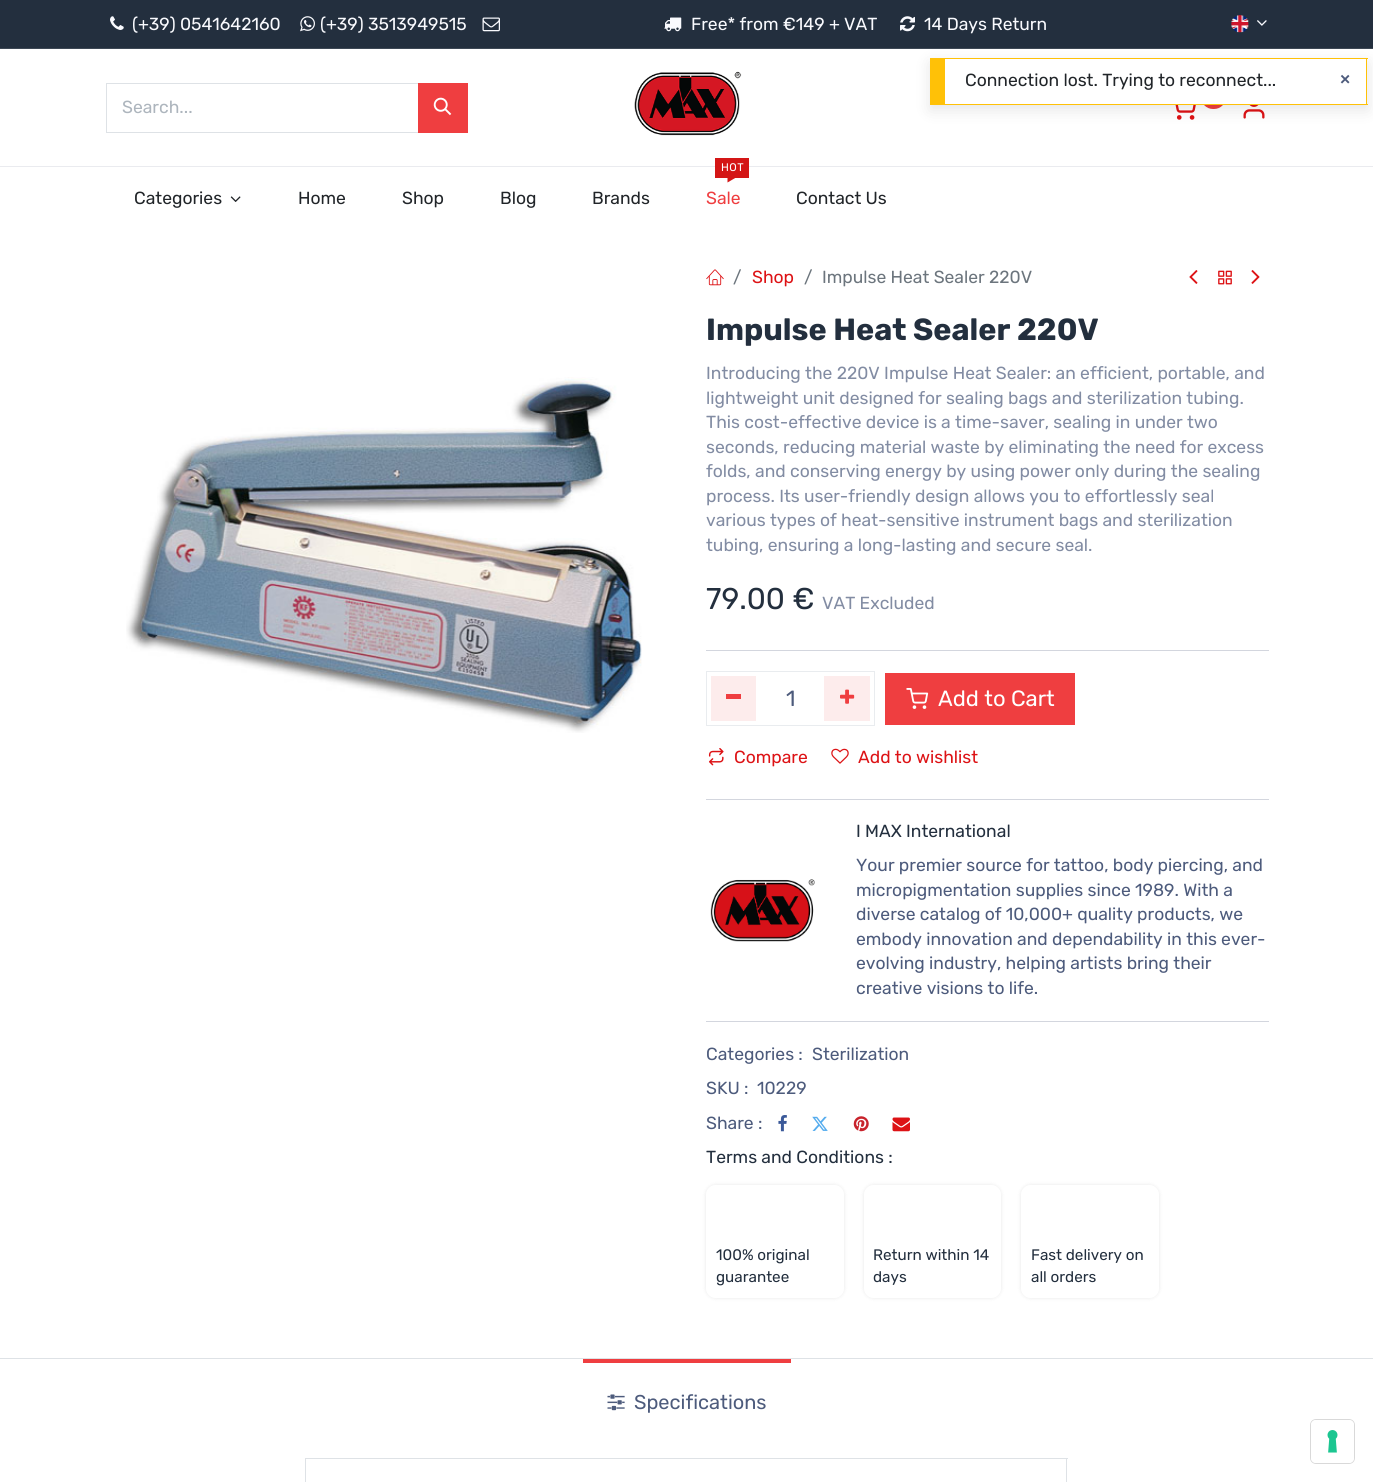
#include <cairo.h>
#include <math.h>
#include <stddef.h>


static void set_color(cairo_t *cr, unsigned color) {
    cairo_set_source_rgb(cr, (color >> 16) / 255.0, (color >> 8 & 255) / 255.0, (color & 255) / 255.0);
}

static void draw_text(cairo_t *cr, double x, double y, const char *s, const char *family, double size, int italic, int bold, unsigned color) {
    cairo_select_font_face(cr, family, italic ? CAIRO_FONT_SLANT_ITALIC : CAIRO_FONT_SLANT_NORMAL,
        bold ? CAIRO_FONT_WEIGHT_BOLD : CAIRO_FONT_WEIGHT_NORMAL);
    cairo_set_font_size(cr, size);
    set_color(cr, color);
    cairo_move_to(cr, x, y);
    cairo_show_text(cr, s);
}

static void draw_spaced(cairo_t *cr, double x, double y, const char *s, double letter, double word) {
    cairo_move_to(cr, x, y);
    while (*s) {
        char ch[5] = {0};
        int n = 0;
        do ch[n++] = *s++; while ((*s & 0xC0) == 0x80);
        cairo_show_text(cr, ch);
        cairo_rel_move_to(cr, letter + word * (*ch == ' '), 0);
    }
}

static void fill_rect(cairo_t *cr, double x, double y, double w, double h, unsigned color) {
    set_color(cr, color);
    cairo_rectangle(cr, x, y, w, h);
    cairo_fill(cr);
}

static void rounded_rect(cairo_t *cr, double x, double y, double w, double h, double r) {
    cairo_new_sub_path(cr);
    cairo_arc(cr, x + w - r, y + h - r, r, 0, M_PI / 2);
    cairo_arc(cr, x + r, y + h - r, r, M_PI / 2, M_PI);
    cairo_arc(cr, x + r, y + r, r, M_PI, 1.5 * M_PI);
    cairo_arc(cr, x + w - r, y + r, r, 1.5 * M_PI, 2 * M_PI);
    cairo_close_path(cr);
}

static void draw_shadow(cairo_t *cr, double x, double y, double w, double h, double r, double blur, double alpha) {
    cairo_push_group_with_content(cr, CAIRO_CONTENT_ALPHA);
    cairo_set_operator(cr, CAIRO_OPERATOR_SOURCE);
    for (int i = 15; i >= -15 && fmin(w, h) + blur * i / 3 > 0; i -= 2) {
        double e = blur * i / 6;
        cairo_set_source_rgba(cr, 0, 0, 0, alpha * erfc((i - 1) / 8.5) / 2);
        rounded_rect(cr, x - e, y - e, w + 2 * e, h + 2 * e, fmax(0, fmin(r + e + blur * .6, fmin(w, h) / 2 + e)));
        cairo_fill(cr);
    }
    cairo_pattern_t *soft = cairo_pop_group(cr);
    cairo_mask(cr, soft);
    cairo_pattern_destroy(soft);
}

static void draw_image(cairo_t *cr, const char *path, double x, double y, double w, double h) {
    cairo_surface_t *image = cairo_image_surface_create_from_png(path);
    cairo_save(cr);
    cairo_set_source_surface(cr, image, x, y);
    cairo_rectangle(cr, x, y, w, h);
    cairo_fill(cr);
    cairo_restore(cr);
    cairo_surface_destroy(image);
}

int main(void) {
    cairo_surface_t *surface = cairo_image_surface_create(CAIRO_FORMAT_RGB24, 1373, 1482);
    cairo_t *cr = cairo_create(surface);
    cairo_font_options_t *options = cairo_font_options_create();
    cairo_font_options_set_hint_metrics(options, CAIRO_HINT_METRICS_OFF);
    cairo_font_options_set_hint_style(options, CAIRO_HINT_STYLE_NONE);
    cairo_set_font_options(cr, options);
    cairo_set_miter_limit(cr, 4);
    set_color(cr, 0xFFFFFF);
    cairo_paint(cr);
    fill_rect(cr, 0, 0, 1373, 48, 0x232F3E);
    fill_rect(cr, 0, 48, 1373, 1, 0x3D4855);
    draw_image(cr, "assets/img1.png", 110, 16, 14, 14);
    draw_text(cr, 132, 30, "(+39) 0541642160", "Rubik", 17.5, 0, 0, 0xF9FAFE);
    draw_image(cr, "assets/img2.png", 300, 16, 15, 16);
    draw_text(cr, 320, 30, "(+39) 3513949515", "Rubik", 17.5, 0, 0, 0xF9FAFE);
    draw_image(cr, "assets/img3.png", 482, 17, 18, 15);
    draw_image(cr, "assets/img4.png", 664, 17, 18, 15);
    draw_text(cr, 691, 30, "Free* from €149 + VAT", "Rubik", 17.5, 0, 0, 0xF9FAFE);
    draw_image(cr, "assets/img5.png", 900, 16, 15, 16);
    draw_text(cr, 924, 30, "14 Days Return", "Rubik", 17.5, 0, 0, 0xF9FAFE);
    draw_image(cr, "assets/img6.png", 1231, 15, 19, 18);
    draw_image(cr, "assets/img7.png", 1257, 20, 10, 6);
    fill_rect(cr, 0, 166, 1373, 1, 0xEAEBEF);
    cairo_rectangle(cr, 106.5, 83.5, 312, 49);
    set_color(cr, 0xDEE2E6);
    cairo_set_line_width(cr, 1);
    cairo_stroke(cr);
    draw_text(cr, 122, 113, "Search...", "Rubik", 17.5, 0, 0, 0xADB5BD);
    fill_rect(cr, 418, 83, 50, 50, 0xEF3E40);
    draw_image(cr, "assets/img8.png", 433, 97, 19, 19);
    draw_image(cr, "assets/img9.png", 634, 71, 108, 65);
    rounded_rect(cr, 1201, 85, 25, 24, 12);
    cairo_fill(cr);
    draw_image(cr, "assets/img10.png", 1175, 105, 21, 15);
    draw_image(cr, "assets/img11.png", 1243, 105, 22, 14);
    draw_text(cr, 134, 204, "Categories", "Rubik", 17.5, 0, 0, 0x212529);
    draw_image(cr, "assets/img12.png", 230, 196, 11, 6);
    draw_text(cr, 298, 204, "Home", "Rubik", 17.5, 0, 0, 0x212529);
    draw_text(cr, 402, 204, "Shop", "Rubik", 17.5, 0, 0, 0x212529);
    draw_text(cr, 500, 204, "Blog", "Rubik", 17.5, 0, 0, 0x212529);
    draw_text(cr, 592, 204, "Brands", "Rubik", 17.5, 0, 0, 0x212529);
    fill_rect(cr, 715, 158, 34, 20, 0xD41616);
    cairo_set_font_size(cr, 11);
    set_color(cr, 0xFFFFFF);
    draw_spaced(cr, 721, 171, "HOT", 0.5, 0);
    set_color(cr, 0xD41616);
    cairo_new_path(cr);
    cairo_move_to(cr, 727.5, 177.5);
    cairo_line_to(cr, 736, 177.5);
    cairo_line_to(cr, 727.5, 182.5);
    cairo_close_path(cr);
    cairo_fill(cr);
    draw_text(cr, 706, 204, "Sale", "Rubik", 17.5, 0, 0, 0xEF3E40);
    draw_text(cr, 796, 204, "Contact Us", "Rubik", 17.5, 0, 0, 0x212529);
    draw_image(cr, "assets/img13.png", 126, 377, 516, 356);
    draw_image(cr, "assets/img14.png", 706, 269, 18, 17);
    draw_text(cr, 733, 283, "/", "Rubik", 17.5, 0, 0, 0x6C757D);
    draw_text(cr, 752, 283, "Shop", "Rubik", 17.5, 0, 0, 0xDD1215);
    draw_text(cr, 804, 283, "/", "Rubik", 17.5, 0, 0, 0x6C757D);
    draw_text(cr, 822, 283, "Impulse Heat Sealer 220V", "Rubik", 17.5, 0, 0, 0x6C757D);
    draw_image(cr, "assets/img15.png", 1189, 270, 9, 14);
    draw_image(cr, "assets/img16.png", 1218, 270, 14, 15);
    draw_image(cr, "assets/img17.png", 1251, 270, 9, 14);
    draw_text(cr, 706, 340, "Impulse Heat Sealer 220V", "Rubik", 30.6, 0, 1, 0x232F3E);
    draw_text(cr, 706, 379, "Introducing the 220V Impulse Heat Sealer: an efficient, portable, and", "Rubik", 17.5, 0, 0, 0x828CA3);
    draw_text(cr, 706, 404, "lightweight unit designed for sealing bags and sterilization tubing.", "Rubik", 17.5, 0, 0, 0x828CA3);
    draw_text(cr, 706, 428, "This cost-effective device is a time-saver, sealing in under two", "Rubik", 17.5, 0, 0, 0x828CA3);
    draw_text(cr, 706, 453, "seconds, reducing material waste by eliminating the need for excess", "Rubik", 17.5, 0, 0, 0x828CA3);
    draw_text(cr, 706, 477, "folds, and conserving energy by using power only during the sealing", "Rubik", 17.5, 0, 0, 0x828CA3);
    draw_text(cr, 706, 502, "process. Its user-friendly design allows you to effortlessly seal", "Rubik", 17.5, 0, 0, 0x828CA3);
    draw_text(cr, 706, 526, "various types of heat-sensitive instrument bags and sterilization", "Rubik", 17.5, 0, 0, 0x828CA3);
    draw_text(cr, 706, 551, "tubing, ensuring a long-lasting and secure seal.", "Rubik", 17.5, 0, 0, 0x828CA3);
    draw_text(cr, 706, 609, "79.00 €", "Rubik", 30, 0, 0, 0x232F3E);
    draw_text(cr, 822, 609, "VAT Excluded", "Rubik", 17.5, 0, 0, 0x828CA3);
    fill_rect(cr, 706, 650, 563, 1, 0xD3D6DE);
    cairo_rectangle(cr, 706.5, 671.5, 168, 54);
    set_color(cr, 0xE9ECEF);
    cairo_stroke(cr);
    fill_rect(cr, 711, 676, 45, 45, 0xFDECEC);
    fill_rect(cr, 726, 694, 15, 5, 0xEF3E40);
    draw_text(cr, 786, 706, "1", "Rubik", 22, 0, 0, 0x4D5B7C);
    fill_rect(cr, 824, 676, 46, 45, 0xFDECEC);
    draw_image(cr, "assets/img18.png", 840, 689, 15, 15);
    fill_rect(cr, 885, 673, 190, 52, 0xEF3E40);
    draw_image(cr, "assets/img19.png", 906, 688, 23, 21);
    draw_text(cr, 938, 706, "Add to Cart", "Rubik", 22, 0, 0, 0xFFFFFF);
    draw_image(cr, "assets/img20.png", 708, 748, 16, 18);
    draw_text(cr, 734, 763, "Compare", "Rubik", 17.5, 0, 0, 0xDD1215);
    draw_image(cr, "assets/img21.png", 831, 748, 18, 16);
    draw_text(cr, 858, 763, "Add to wishlist", "Rubik", 17.5, 0, 0, 0xDD1215);
    fill_rect(cr, 706, 799, 563, 1, 0xD3D6DE);
    draw_image(cr, "assets/img22.png", 710, 879, 105, 63);
    draw_text(cr, 856, 837, "I MAX International", "Rubik", 17.5, 0, 0, 0x232F3E);
    draw_text(cr, 856, 871, "Your premier source for tattoo, body piercing, and", "Rubik", 17.5, 0, 0, 0x4D5B7C);
    draw_text(cr, 856, 896, "micropigmentation supplies since 1989. With a", "Rubik", 17.5, 0, 0, 0x4D5B7C);
    draw_text(cr, 856, 920, "diverse catalog of 10,000+ quality products, we", "Rubik", 17.5, 0, 0, 0x4D5B7C);
    draw_text(cr, 856, 945, "embody innovation and dependability in this ever-", "Rubik", 17.5, 0, 0, 0x4D5B7C);
    draw_text(cr, 856, 969, "evolving industry, helping artists bring their", "Rubik", 17.5, 0, 0, 0x4D5B7C);
    draw_text(cr, 856, 994, "creative visions to life.", "Rubik", 17.5, 0, 0, 0x4D5B7C);
    fill_rect(cr, 706, 1021, 563, 1, 0xD3D6DE);
    draw_text(cr, 706, 1060, "Categories :", "Rubik", 17.5, 0, 0, 0x4D5B7C);
    draw_text(cr, 812, 1060, "Sterilization", "Rubik", 17.5, 0, 0, 0x4D5B7C);
    draw_text(cr, 706, 1094, "SKU :", "Rubik", 17.5, 0, 0, 0x4D5B7C);
    draw_text(cr, 757, 1094, "10229", "Rubik", 17.5, 0, 0, 0x4D5B7C);
    draw_text(cr, 706, 1129, "Share :", "Rubik", 17.5, 0, 0, 0x4D5B7C);
    draw_image(cr, "assets/img23.png", 778, 1115, 9, 17);
    draw_image(cr, "assets/img24.png", 812, 1116, 16, 15);
    draw_image(cr, "assets/img25.png", 853, 1116, 16, 16);
    draw_image(cr, "assets/img26.png", 892, 1117, 18, 15);
    draw_text(cr, 706, 1163, "Terms and Conditions :", "Rubik", 17.5, 0, 0, 0x232F3E);
    cairo_save(cr);
    cairo_set_fill_rule(cr, CAIRO_FILL_RULE_EVEN_ODD);
    cairo_new_path(cr);
    cairo_move_to(cr, 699, 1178);
    cairo_line_to(cr, 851, 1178);
    cairo_line_to(cr, 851, 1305);
    cairo_line_to(cr, 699, 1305);
    cairo_close_path(cr);
    cairo_move_to(cr, 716, 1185);
    cairo_line_to(cr, 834, 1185);
    cairo_curve_to(cr, 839.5, 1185, 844, 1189.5, 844, 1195);
    cairo_line_to(cr, 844, 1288);
    cairo_curve_to(cr, 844, 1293.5, 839.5, 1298, 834, 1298);
    cairo_line_to(cr, 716, 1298);
    cairo_curve_to(cr, 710.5, 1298, 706, 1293.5, 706, 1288);
    cairo_line_to(cr, 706, 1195);
    cairo_curve_to(cr, 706, 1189.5, 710.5, 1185, 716, 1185);
    cairo_close_path(cr);
    cairo_clip(cr);
    set_color(cr, 0x000000);
    draw_shadow(cr, 706, 1185, 138, 113, 10, 2, 0.1);
    cairo_restore(cr);
    draw_text(cr, 716, 1260, "100% original", "Rubik", 15.25, 0, 0, 0x232F3E);
    draw_text(cr, 716, 1282, "guarantee", "Rubik", 15.25, 0, 0, 0x232F3E);
    cairo_save(cr);
    cairo_set_fill_rule(cr, CAIRO_FILL_RULE_EVEN_ODD);
    cairo_new_path(cr);
    cairo_move_to(cr, 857, 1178);
    cairo_line_to(cr, 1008, 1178);
    cairo_line_to(cr, 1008, 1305);
    cairo_line_to(cr, 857, 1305);
    cairo_close_path(cr);
    cairo_move_to(cr, 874, 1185);
    cairo_line_to(cr, 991, 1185);
    cairo_curve_to(cr, 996.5, 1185, 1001, 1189.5, 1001, 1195);
    cairo_line_to(cr, 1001, 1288);
    cairo_curve_to(cr, 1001, 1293.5, 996.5, 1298, 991, 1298);
    cairo_line_to(cr, 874, 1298);
    cairo_curve_to(cr, 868.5, 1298, 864, 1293.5, 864, 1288);
    cairo_line_to(cr, 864, 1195);
    cairo_curve_to(cr, 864, 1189.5, 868.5, 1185, 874, 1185);
    cairo_close_path(cr);
    cairo_clip(cr);
    set_color(cr, 0x000000);
    draw_shadow(cr, 864, 1185, 137, 113, 10, 2, 0.1);
    cairo_restore(cr);
    draw_text(cr, 873, 1260, "Return within 14", "Rubik", 15.25, 0, 0, 0x232F3E);
    draw_text(cr, 873, 1282, "days", "Rubik", 15.25, 0, 0, 0x232F3E);
    cairo_save(cr);
    cairo_set_fill_rule(cr, CAIRO_FILL_RULE_EVEN_ODD);
    cairo_new_path(cr);
    cairo_move_to(cr, 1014, 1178);
    cairo_line_to(cr, 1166, 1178);
    cairo_line_to(cr, 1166, 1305);
    cairo_line_to(cr, 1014, 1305);
    cairo_close_path(cr);
    cairo_move_to(cr, 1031, 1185);
    cairo_line_to(cr, 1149, 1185);
    cairo_curve_to(cr, 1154.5, 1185, 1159, 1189.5, 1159, 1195);
    cairo_line_to(cr, 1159, 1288);
    cairo_curve_to(cr, 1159, 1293.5, 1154.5, 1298, 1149, 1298);
    cairo_line_to(cr, 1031, 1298);
    cairo_curve_to(cr, 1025.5, 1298, 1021, 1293.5, 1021, 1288);
    cairo_line_to(cr, 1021, 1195);
    cairo_curve_to(cr, 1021, 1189.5, 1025.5, 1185, 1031, 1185);
    cairo_close_path(cr);
    cairo_clip(cr);
    set_color(cr, 0x000000);
    draw_shadow(cr, 1021, 1185, 138, 113, 10, 2, 0.1);
    cairo_restore(cr);
    draw_text(cr, 1031, 1260, "Fast delivery on", "Rubik", 15.25, 0, 0, 0x232F3E);
    draw_text(cr, 1031, 1282, "all orders", "Rubik", 15.25, 0, 0, 0x232F3E);
    fill_rect(cr, 0, 1358, 1373, 1, 0xDEE2E6);
    fill_rect(cr, 583, 1359, 208, 4, 0xEF3E40);
    draw_image(cr, "assets/img27.png", 607, 1394, 18, 17);
    draw_text(cr, 634, 1409, "Specifications", "Rubik", 20, 0, 0, 0x4D5B7C);
    fill_rect(cr, 305, 1458, 763, 1, 0xDEE2E6);
    fill_rect(cr, 1066, 1458, 1, 24, 0xDEE2E6);
    fill_rect(cr, 305, 1458, 1, 24, 0xDEE2E6);
    set_color(cr, 0x000000);
    draw_shadow(cr, 930, 63, 438, 47, 0, 7.5, 0.1);
    fill_rect(cr, 945, 59, 421, 45, 0xFFFFFF);
    fill_rect(cr, 945, 58, 423, 1, 0xFFC107);
    fill_rect(cr, 1366, 58, 1, 47, 0xFFC107);
    fill_rect(cr, 945, 104, 423, 1, 0xFFC107);
    fill_rect(cr, 930, 58, 15, 47, 0xFFC107);
    draw_text(cr, 965, 86, "Connection lost. Trying to reconnect...", "Rubik", 17.5, 0, 0, 0x212529);
    draw_text(cr, 1340, 85, "×", "Liberation Sans", 17.5, 0, 1, 0x4D5B7C);
    rounded_rect(cr, 1310.5, 1419.5, 44, 44, 5.5);
    set_color(cr, 0xD9D9D9);
    cairo_stroke(cr);
    set_color(cr, 0xFFFFFF);
    rounded_rect(cr, 1311, 1420, 43, 43, 5);
    cairo_fill(cr);
    draw_image(cr, "assets/img28.png", 1327, 1430, 11, 23);
    cairo_surface_write_to_png(surface, "output.png");
    cairo_font_options_destroy(options);
    cairo_destroy(cr);
    cairo_surface_destroy(surface);
    return 0;
}
